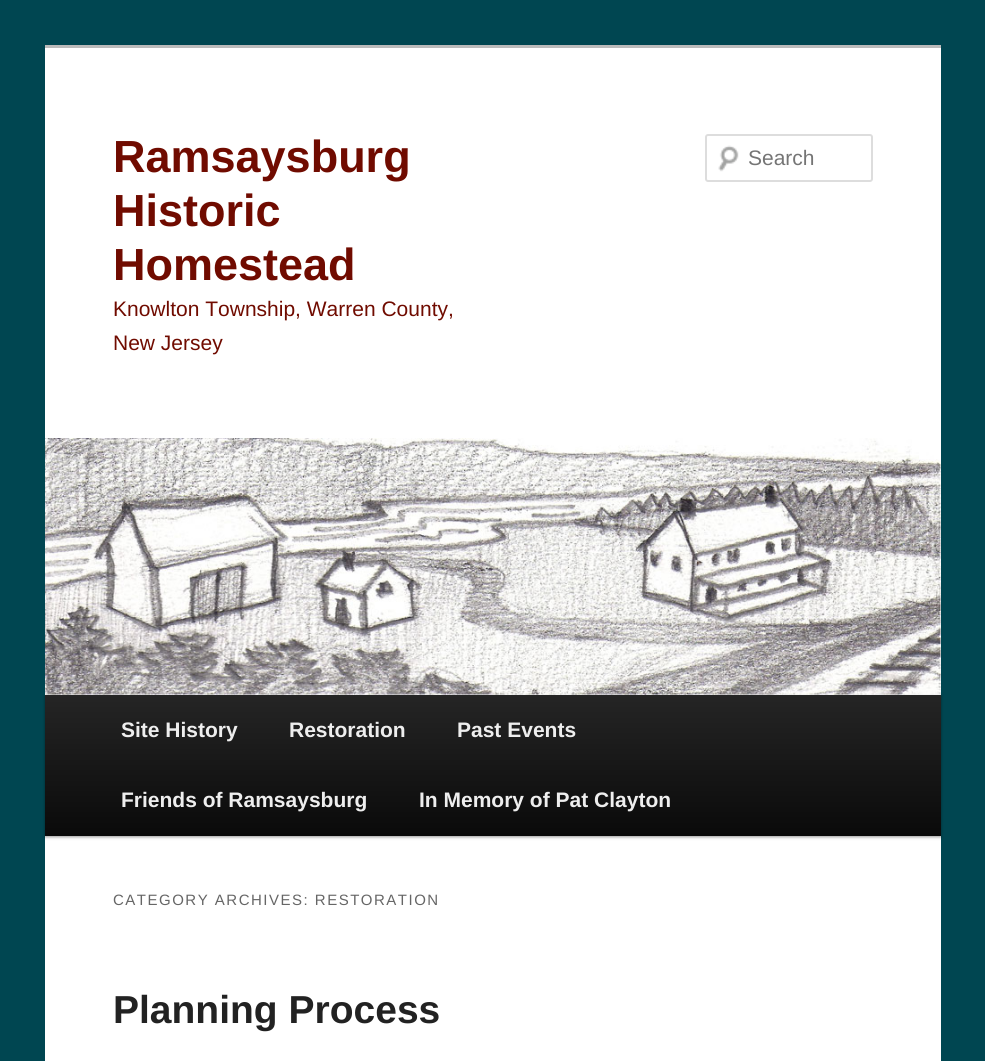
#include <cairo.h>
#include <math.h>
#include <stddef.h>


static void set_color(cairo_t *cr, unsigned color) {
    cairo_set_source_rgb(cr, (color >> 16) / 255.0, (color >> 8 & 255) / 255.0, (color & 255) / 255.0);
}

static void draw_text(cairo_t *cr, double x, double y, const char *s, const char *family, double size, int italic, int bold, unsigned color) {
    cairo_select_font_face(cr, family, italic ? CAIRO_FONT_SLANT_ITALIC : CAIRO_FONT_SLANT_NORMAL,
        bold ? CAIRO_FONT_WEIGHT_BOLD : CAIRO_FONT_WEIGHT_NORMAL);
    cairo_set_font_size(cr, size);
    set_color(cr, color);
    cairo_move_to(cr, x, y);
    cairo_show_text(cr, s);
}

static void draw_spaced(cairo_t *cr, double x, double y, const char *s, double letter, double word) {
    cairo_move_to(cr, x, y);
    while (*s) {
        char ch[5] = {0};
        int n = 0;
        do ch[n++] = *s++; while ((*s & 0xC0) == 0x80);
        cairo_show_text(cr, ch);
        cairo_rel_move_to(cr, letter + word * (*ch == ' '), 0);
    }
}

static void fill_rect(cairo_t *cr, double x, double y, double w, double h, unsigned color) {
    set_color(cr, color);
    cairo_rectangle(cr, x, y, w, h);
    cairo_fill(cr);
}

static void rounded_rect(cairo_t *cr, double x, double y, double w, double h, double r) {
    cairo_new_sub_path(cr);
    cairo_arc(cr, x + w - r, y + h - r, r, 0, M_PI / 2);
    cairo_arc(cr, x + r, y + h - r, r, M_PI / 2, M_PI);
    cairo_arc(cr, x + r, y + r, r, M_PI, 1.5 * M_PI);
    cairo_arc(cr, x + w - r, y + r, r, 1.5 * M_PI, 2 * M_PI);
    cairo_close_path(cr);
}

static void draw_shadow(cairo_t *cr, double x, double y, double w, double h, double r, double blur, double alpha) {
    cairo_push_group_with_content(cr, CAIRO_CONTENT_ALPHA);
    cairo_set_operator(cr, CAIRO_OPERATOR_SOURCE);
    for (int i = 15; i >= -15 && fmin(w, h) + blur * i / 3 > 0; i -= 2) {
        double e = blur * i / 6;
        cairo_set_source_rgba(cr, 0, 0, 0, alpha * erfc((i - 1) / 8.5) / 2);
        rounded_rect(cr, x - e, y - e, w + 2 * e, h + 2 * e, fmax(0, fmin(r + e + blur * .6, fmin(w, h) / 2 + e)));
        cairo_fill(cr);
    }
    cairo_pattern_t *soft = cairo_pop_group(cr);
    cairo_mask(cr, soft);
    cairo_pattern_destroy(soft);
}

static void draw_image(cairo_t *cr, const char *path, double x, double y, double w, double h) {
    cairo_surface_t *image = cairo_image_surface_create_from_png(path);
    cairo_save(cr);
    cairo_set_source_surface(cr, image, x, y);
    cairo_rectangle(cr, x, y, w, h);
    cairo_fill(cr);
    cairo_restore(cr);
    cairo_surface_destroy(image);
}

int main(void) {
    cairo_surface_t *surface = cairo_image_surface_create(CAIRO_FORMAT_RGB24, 985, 1061);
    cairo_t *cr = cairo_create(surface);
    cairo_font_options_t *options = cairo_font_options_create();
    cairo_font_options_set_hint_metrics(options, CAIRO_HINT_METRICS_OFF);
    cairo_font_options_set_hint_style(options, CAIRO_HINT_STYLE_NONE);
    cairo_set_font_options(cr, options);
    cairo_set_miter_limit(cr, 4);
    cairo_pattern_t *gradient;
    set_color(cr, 0x004651);
    cairo_paint(cr);
    fill_rect(cr, 45, 48, 896, 1013, 0xFFFFFF);
    fill_rect(cr, 45, 45, 896, 3, 0xBBBBBB);
    draw_text(cr, 113, 172, "Ramsaysburg", "Liberation Sans", 45, 0, 1, 0x700B00);
    draw_text(cr, 113, 226, "Historic", "Liberation Sans", 45, 0, 1, 0x700B00);
    draw_text(cr, 113, 280, "Homestead", "Liberation Sans", 45, 0, 1, 0x700B00);
    draw_text(cr, 113, 316, "Knowlton Township, Warren County,", "Liberation Sans", 21, 0, 0, 0x700B00);
    draw_text(cr, 113, 350, "New Jersey", "Liberation Sans", 21, 0, 0, 0x700B00);
    draw_image(cr, "assets/img1.png", 718, 145, 21, 27);
    rounded_rect(cr, 706, 135, 166, 46, 2);
    set_color(cr, 0xDDDDDD);
    cairo_stroke(cr);
    draw_text(cr, 748, 165, "Search", "Liberation Sans", 21, 0, 0, 0x757575);
    set_color(cr, 0x000000);
    draw_shadow(cr, 45, 696, 896, 141, 0, 1.5, 0.4);
    draw_image(cr, "assets/img2.png", 45, 438, 896, 257);
    gradient = cairo_pattern_create_linear(493, 694, 493, 836);
    cairo_pattern_add_color_stop_rgba(gradient, 0, 0.145, 0.145, 0.145, 1);
    cairo_pattern_add_color_stop_rgba(gradient, 1, 0.039, 0.039, 0.039, 1);
    cairo_set_source(cr, gradient);
    cairo_pattern_destroy(gradient);
    cairo_rectangle(cr, 45, 695, 896, 141);
    cairo_fill(cr);
    draw_text(cr, 121, 737, "Site History", "Liberation Sans", 21, 0, 1, 0xEEEEEE);
    draw_text(cr, 289, 737, "Restoration", "Liberation Sans", 21, 0, 1, 0xEEEEEE);
    draw_text(cr, 457, 737, "Past Events", "Liberation Sans", 21, 0, 1, 0xEEEEEE);
    draw_text(cr, 121, 807, "Friends of Ramsaysburg", "Liberation Sans", 21, 0, 1, 0xEEEEEE);
    draw_text(cr, 419, 807, "In Memory of Pat Clayton", "Liberation Sans", 21, 0, 1, 0xEEEEEE);
    cairo_select_font_face(cr, "Liberation Sans", CAIRO_FONT_SLANT_NORMAL, CAIRO_FONT_WEIGHT_NORMAL);
    cairo_set_font_size(cr, 15);
    set_color(cr, 0x666666);
    draw_spaced(cr, 113, 905, "CATEGORY ARCHIVES: RESTORATION", 1.5, 0);
    draw_text(cr, 113, 1023, "Planning Process", "Liberation Sans", 39, 0, 1, 0x222222);
    cairo_surface_write_to_png(surface, "output.png");
    cairo_font_options_destroy(options);
    cairo_destroy(cr);
    cairo_surface_destroy(surface);
    return 0;
}
